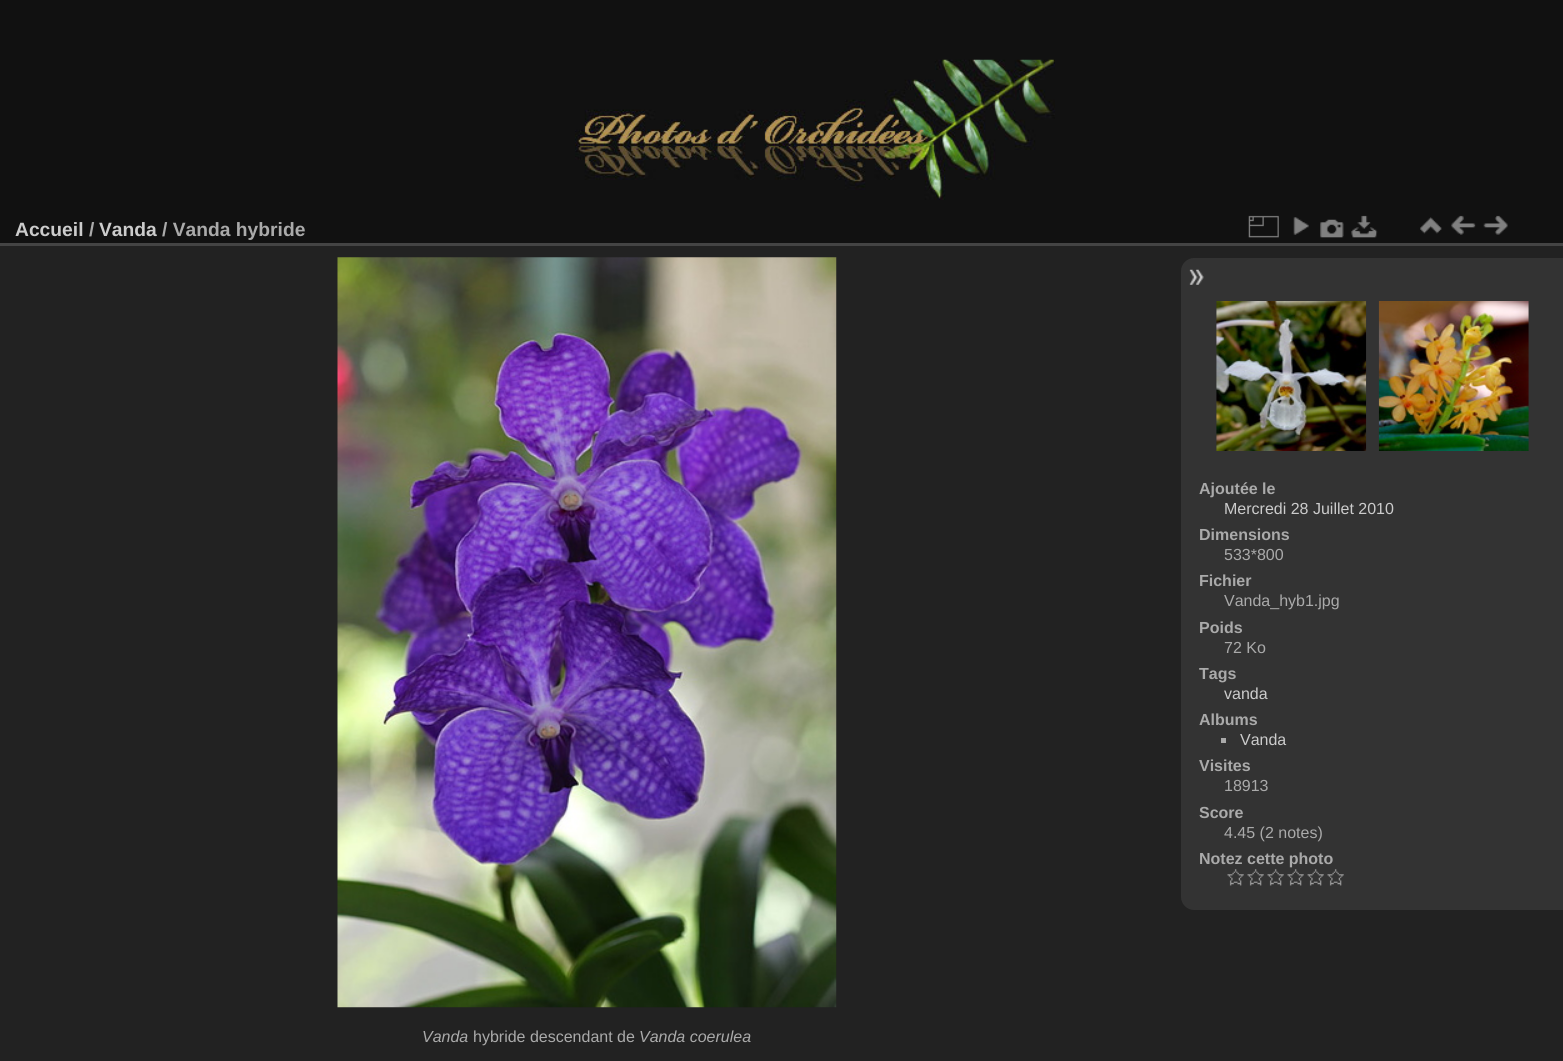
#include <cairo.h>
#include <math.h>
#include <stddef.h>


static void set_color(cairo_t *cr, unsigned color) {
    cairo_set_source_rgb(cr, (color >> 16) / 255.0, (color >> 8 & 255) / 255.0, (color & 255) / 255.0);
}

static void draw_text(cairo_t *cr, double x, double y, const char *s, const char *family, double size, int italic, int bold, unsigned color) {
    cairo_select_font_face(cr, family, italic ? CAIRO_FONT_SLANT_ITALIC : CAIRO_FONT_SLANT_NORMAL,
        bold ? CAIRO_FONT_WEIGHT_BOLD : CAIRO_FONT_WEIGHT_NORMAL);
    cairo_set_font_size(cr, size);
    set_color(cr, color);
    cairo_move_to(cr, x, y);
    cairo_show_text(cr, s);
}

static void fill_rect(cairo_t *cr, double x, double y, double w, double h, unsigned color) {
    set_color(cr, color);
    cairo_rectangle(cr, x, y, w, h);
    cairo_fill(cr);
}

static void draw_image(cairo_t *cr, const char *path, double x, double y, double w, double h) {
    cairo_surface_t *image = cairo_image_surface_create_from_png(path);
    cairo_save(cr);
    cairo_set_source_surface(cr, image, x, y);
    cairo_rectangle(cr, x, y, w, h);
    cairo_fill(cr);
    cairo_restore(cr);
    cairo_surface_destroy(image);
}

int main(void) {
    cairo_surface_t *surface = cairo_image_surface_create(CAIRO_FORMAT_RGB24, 1563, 1061);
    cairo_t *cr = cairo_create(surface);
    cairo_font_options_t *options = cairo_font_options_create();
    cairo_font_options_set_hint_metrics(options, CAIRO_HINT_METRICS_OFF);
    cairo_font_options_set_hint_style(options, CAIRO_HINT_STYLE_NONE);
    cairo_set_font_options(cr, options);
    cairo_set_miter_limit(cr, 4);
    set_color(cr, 0x111111);
    cairo_paint(cr);
    draw_image(cr, "assets/img1.png", 575, 59, 480, 141);
    fill_rect(cr, 0, 246, 1563, 815, 0x222222);
    fill_rect(cr, 0, 243, 1563, 3, 0x444444);
    draw_text(cr, 15, 236, "Accueil", "Liberation Sans", 19.25, 0, 1, 0xCCCCCC);
    draw_text(cr, 89, 236, "/", "Liberation Sans", 19.25, 0, 1, 0xAAAAAA);
    draw_text(cr, 99, 236, "Vanda", "Liberation Sans", 19.25, 0, 1, 0xCCCCCC);
    draw_text(cr, 162, 236, "/ Vanda hybride", "Liberation Sans", 19.25, 0, 1, 0xAAAAAA);
    draw_image(cr, "assets/img2.png", 1248, 215, 31, 23);
    draw_image(cr, "assets/img3.png", 1293, 217, 16, 18);
    draw_image(cr, "assets/img4.png", 1320, 219, 24, 19);
    draw_image(cr, "assets/img5.png", 1351, 215, 27, 23);
    draw_image(cr, "assets/img6.png", 1420, 217, 22, 17);
    draw_image(cr, "assets/img7.png", 1451, 215, 25, 20);
    draw_image(cr, "assets/img8.png", 1483, 215, 25, 20);
    set_color(cr, 0x333333);
    cairo_new_path(cr);
    cairo_move_to(cr, 1194, 258);
    cairo_line_to(cr, 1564, 258);
    cairo_line_to(cr, 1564, 910);
    cairo_line_to(cr, 1194, 910);
    cairo_curve_to(cr, 1187, 910, 1181, 904, 1181, 897);
    cairo_line_to(cr, 1181, 271);
    cairo_curve_to(cr, 1181, 264, 1187, 258, 1194, 258);
    cairo_close_path(cr);
    cairo_fill(cr);
    draw_image(cr, "assets/img9.png", 1189, 269, 15, 16);
    draw_image(cr, "assets/img10.png", 1216, 301, 151, 150);
    draw_image(cr, "assets/img11.png", 1378, 301, 151, 150);
    draw_text(cr, 1199, 494, "Ajoutée le", "Liberation Sans", 16, 0, 1, 0xAAAAAA);
    draw_text(cr, 1224, 514, "Mercredi 28 Juillet 2010", "Liberation Sans", 16, 0, 0, 0xCCCCCC);
    draw_text(cr, 1199, 540, "Dimensions", "Liberation Sans", 16, 0, 1, 0xAAAAAA);
    draw_text(cr, 1224, 560, "533*800", "Liberation Sans", 16, 0, 0, 0xAAAAAA);
    draw_text(cr, 1199, 586, "Fichier", "Liberation Sans", 16, 0, 1, 0xAAAAAA);
    draw_text(cr, 1224, 606, "Vanda_hyb1.jpg", "Liberation Sans", 16, 0, 0, 0xAAAAAA);
    draw_text(cr, 1199, 633, "Poids", "Liberation Sans", 16, 0, 1, 0xAAAAAA);
    draw_text(cr, 1224, 653, "72 Ko", "Liberation Sans", 16, 0, 0, 0xAAAAAA);
    draw_text(cr, 1199, 679, "Tags", "Liberation Sans", 16, 0, 1, 0xAAAAAA);
    draw_text(cr, 1224, 699, "vanda", "Liberation Sans", 16, 0, 0, 0xCCCCCC);
    draw_text(cr, 1199, 725, "Albums", "Liberation Sans", 16, 0, 1, 0xAAAAAA);
    fill_rect(cr, 1221, 738, 5, 5, 0xAAAAAA);
    draw_text(cr, 1240, 745, "Vanda", "Liberation Sans", 16, 0, 0, 0xCCCCCC);
    draw_text(cr, 1199, 771, "Visites", "Liberation Sans", 16, 0, 1, 0xAAAAAA);
    draw_text(cr, 1224, 791, "18913", "Liberation Sans", 16, 0, 0, 0xAAAAAA);
    draw_text(cr, 1199, 818, "Score", "Liberation Sans", 16, 0, 1, 0xAAAAAA);
    draw_text(cr, 1224, 838, "4.45 (2 notes)", "Liberation Sans", 16, 0, 0, 0xAAAAAA);
    draw_text(cr, 1199, 864, "Notez cette photo", "Liberation Sans", 16, 0, 1, 0xAAAAAA);
    draw_image(cr, "assets/img12.png", 1227, 869, 17, 17);
    draw_image(cr, "assets/img12.png", 1247, 869, 17, 17);
    draw_image(cr, "assets/img12.png", 1267, 869, 17, 17);
    draw_image(cr, "assets/img12.png", 1287, 869, 17, 17);
    draw_image(cr, "assets/img13.png", 1307, 869, 17, 17);
    draw_image(cr, "assets/img12.png", 1327, 869, 17, 17);
    draw_image(cr, "assets/img14.png", 337, 257, 500, 751);
    draw_text(cr, 422, 1042, "Vanda", "Liberation Sans", 16, 1, 0, 0xAAAAAA);
    draw_text(cr, 473, 1042, "hybride descendant de", "Liberation Sans", 16, 0, 0, 0xAAAAAA);
    draw_text(cr, 639, 1042, "Vanda coerulea", "Liberation Sans", 16, 1, 0, 0xAAAAAA);
    cairo_surface_write_to_png(surface, "output.png");
    cairo_font_options_destroy(options);
    cairo_destroy(cr);
    cairo_surface_destroy(surface);
    return 0;
}
